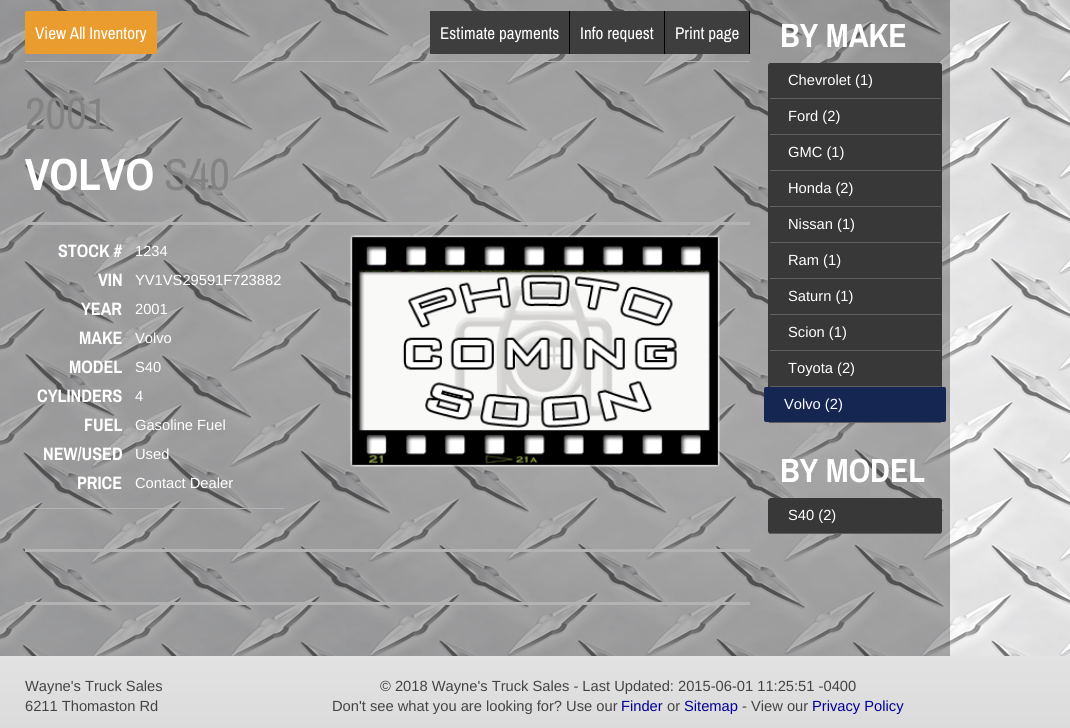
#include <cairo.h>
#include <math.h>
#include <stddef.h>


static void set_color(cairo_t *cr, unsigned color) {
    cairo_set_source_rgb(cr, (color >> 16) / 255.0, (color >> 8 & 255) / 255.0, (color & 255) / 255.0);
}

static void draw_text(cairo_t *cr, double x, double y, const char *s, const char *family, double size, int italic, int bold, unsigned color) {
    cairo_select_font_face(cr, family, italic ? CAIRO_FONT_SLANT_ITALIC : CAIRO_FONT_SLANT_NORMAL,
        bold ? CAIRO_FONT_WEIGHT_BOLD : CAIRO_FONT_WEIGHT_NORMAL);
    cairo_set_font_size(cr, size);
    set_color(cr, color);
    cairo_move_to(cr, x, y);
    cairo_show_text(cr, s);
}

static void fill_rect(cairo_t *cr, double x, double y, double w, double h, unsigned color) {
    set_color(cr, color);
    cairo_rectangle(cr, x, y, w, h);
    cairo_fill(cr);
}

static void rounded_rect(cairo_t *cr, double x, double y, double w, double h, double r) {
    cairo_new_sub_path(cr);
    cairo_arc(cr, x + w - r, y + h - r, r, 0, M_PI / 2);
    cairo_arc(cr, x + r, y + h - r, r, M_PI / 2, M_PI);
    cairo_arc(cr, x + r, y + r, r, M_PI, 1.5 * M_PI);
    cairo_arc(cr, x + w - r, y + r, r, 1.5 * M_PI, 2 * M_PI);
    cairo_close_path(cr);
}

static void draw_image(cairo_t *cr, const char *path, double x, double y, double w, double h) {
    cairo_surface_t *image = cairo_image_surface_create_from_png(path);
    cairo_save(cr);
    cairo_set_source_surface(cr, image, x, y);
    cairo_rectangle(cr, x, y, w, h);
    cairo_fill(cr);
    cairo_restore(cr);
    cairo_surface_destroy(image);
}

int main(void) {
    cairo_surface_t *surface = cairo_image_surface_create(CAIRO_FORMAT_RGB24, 1070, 728);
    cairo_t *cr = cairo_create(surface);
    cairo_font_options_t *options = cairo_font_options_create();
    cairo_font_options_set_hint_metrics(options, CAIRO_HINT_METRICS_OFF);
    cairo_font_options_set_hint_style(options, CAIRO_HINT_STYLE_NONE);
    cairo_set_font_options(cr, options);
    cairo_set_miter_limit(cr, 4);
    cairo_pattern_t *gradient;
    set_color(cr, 0xFFFFFF);
    cairo_paint(cr);
    draw_image(cr, "assets/img1.png", 0, 0, 1070, 656);
    cairo_set_source_rgba(cr, 0, 0, 0, 0.3);
    cairo_rectangle(cr, 0, 0, 950, 656);
    cairo_fill(cr);
    fill_rect(cr, 25, 61, 725, 1, 0xB3B3B3);
    set_color(cr, 0xEB9C2E);
    rounded_rect(cr, 25, 11, 132, 43, 2);
    cairo_fill(cr);
    draw_text(cr, 35, 39, "View All Inventory", "Archivo Narrow", 17, 0, 0, 0xFFFFFF);
    fill_rect(cr, 430, 11, 139, 43, 0x3E3E3E);
    fill_rect(cr, 569, 11, 1, 43, 0x000000);
    draw_text(cr, 440, 39, "Estimate payments", "Archivo Narrow", 17, 0, 0, 0xFFFFFF);
    fill_rect(cr, 570, 11, 94, 43, 0x3E3E3E);
    fill_rect(cr, 664, 11, 1, 43, 0x000000);
    draw_text(cr, 580, 39, "Info request", "Archivo Narrow", 17, 0, 0, 0xFFFFFF);
    fill_rect(cr, 665, 11, 84, 43, 0x3E3E3E);
    fill_rect(cr, 749, 11, 1, 43, 0x000000);
    draw_text(cr, 675, 39, "Print page", "Archivo Narrow", 17, 0, 0, 0xFFFFFF);
    fill_rect(cr, 25, 222, 725, 3, 0xB3B3B3);
    draw_text(cr, 25, 129, "2001", "Archivo Narrow", 45, 0, 0, 0x838383);
    draw_text(cr, 25, 190, "VOLVO", "Archivo Narrow", 45, 0, 1, 0xFFFFFF);
    draw_text(cr, 164, 190, "S40", "Archivo Narrow", 45, 0, 0, 0x838383);
    fill_rect(cr, 25, 508, 259, 1, 0xB3B3B3);
    draw_text(cr, 58, 257, "STOCK #", "Archivo Narrow", 18, 0, 1, 0xFFFFFF);
    draw_text(cr, 135, 256, "1234", "Liberation Sans", 14.7, 0, 0, 0xFFFFFF);
    draw_text(cr, 98, 286, "VIN", "Archivo Narrow", 18, 0, 1, 0xFFFFFF);
    draw_text(cr, 135, 285, "YV1VS29591F723882", "Liberation Sans", 14.7, 0, 0, 0xFFFFFF);
    draw_text(cr, 81, 315, "YEAR", "Archivo Narrow", 18, 0, 1, 0xFFFFFF);
    draw_text(cr, 135, 314, "2001", "Liberation Sans", 14.7, 0, 0, 0xFFFFFF);
    draw_text(cr, 79, 344, "MAKE", "Archivo Narrow", 18, 0, 1, 0xFFFFFF);
    draw_text(cr, 135, 343, "Volvo", "Liberation Sans", 14.7, 0, 0, 0xFFFFFF);
    draw_text(cr, 69, 373, "MODEL", "Archivo Narrow", 18, 0, 1, 0xFFFFFF);
    draw_text(cr, 135, 372, "S40", "Liberation Sans", 14.7, 0, 0, 0xFFFFFF);
    draw_text(cr, 37, 402, "CYLINDERS", "Archivo Narrow", 18, 0, 1, 0xFFFFFF);
    draw_text(cr, 135, 401, "4", "Liberation Sans", 14.7, 0, 0, 0xFFFFFF);
    draw_text(cr, 84, 431, "FUEL", "Archivo Narrow", 18, 0, 1, 0xFFFFFF);
    draw_text(cr, 135, 430, "Gasoline Fuel", "Liberation Sans", 14.7, 0, 0, 0xFFFFFF);
    draw_text(cr, 43, 460, "NEW/USED", "Archivo Narrow", 18, 0, 1, 0xFFFFFF);
    draw_text(cr, 135, 459, "Used", "Liberation Sans", 14.7, 0, 0, 0xFFFFFF);
    draw_text(cr, 77, 489, "PRICE", "Archivo Narrow", 18, 0, 1, 0xFFFFFF);
    draw_text(cr, 135, 488, "Contact Dealer", "Liberation Sans", 14.7, 0, 0, 0xFFFFFF);
    draw_image(cr, "assets/img2.png", 350, 235, 370, 232);
    fill_rect(cr, 25, 549, 725, 3, 0xB3B3B3);
    fill_rect(cr, 25, 602, 725, 3, 0xB3B3B3);
    draw_text(cr, 780, 47, "BY MAKE", "Archivo Narrow", 33.5, 0, 1, 0xFFFFFF);
    set_color(cr, 0x383838);
    rounded_rect(cr, 768, 63, 174, 360, 3);
    cairo_fill(cr);
    rounded_rect(cr, 768, 63, 174, 36, 3);
    cairo_fill(cr);
    fill_rect(cr, 770, 98, 171, 1, 0x606060);
    draw_text(cr, 788, 85, "Chevrolet (1)", "Liberation Sans", 14.7, 0, 0, 0xFFFFFF);
    fill_rect(cr, 770, 134, 171, 1, 0x606060);
    draw_text(cr, 788, 121, "Ford (2)", "Liberation Sans", 14.7, 0, 0, 0xFFFFFF);
    fill_rect(cr, 770, 170, 171, 1, 0x606060);
    draw_text(cr, 788, 157, "GMC (1)", "Liberation Sans", 14.7, 0, 0, 0xFFFFFF);
    fill_rect(cr, 770, 206, 171, 1, 0x606060);
    draw_text(cr, 788, 193, "Honda (2)", "Liberation Sans", 14.7, 0, 0, 0xFFFFFF);
    fill_rect(cr, 770, 242, 171, 1, 0x606060);
    draw_text(cr, 788, 229, "Nissan (1)", "Liberation Sans", 14.7, 0, 0, 0xFFFFFF);
    fill_rect(cr, 770, 278, 171, 1, 0x606060);
    draw_text(cr, 788, 265, "Ram (1)", "Liberation Sans", 14.7, 0, 0, 0xFFFFFF);
    fill_rect(cr, 770, 314, 171, 1, 0x606060);
    draw_text(cr, 788, 301, "Saturn (1)", "Liberation Sans", 14.7, 0, 0, 0xFFFFFF);
    fill_rect(cr, 770, 350, 171, 1, 0x606060);
    draw_text(cr, 788, 337, "Scion (1)", "Liberation Sans", 14.7, 0, 0, 0xFFFFFF);
    fill_rect(cr, 770, 386, 171, 1, 0x606060);
    draw_text(cr, 788, 373, "Toyota (2)", "Liberation Sans", 14.7, 0, 0, 0xFFFFFF);
    set_color(cr, 0x383838);
    rounded_rect(cr, 768, 387, 174, 36, 3);
    cairo_fill(cr);
    fill_rect(cr, 770, 422, 171, 1, 0x606060);
    set_color(cr, 0x152652);
    rounded_rect(cr, 764, 387, 182, 35, 2);
    cairo_fill(cr);
    draw_text(cr, 784, 409, "Volvo (2)", "Liberation Sans", 14.7, 0, 0, 0xFFFFFF);
    draw_text(cr, 780, 482, "BY MODEL", "Archivo Narrow", 33.5, 0, 1, 0xFFFFFF);
    set_color(cr, 0x383838);
    rounded_rect(cr, 768, 498, 174, 36, 3);
    cairo_fill(cr);
    fill_rect(cr, 770, 533, 171, 1, 0x606060);
    draw_text(cr, 788, 520, "S40 (2)", "Liberation Sans", 14.7, 0, 0, 0xFFFFFF);
    gradient = cairo_pattern_create_linear(535, 656, 535, 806);
    cairo_pattern_add_color_stop_rgba(gradient, 0, 0.886, 0.886, 0.886, 1);
    cairo_pattern_add_color_stop_rgba(gradient, 0.5, 0.859, 0.859, 0.859, 1);
    cairo_pattern_add_color_stop_rgba(gradient, 0.51, 0.82, 0.82, 0.82, 1);
    cairo_pattern_add_color_stop_rgba(gradient, 1, 0.996, 0.996, 0.996, 1);
    cairo_set_source(cr, gradient);
    cairo_pattern_destroy(gradient);
    cairo_rectangle(cr, 0, 656, 1070, 72);
    cairo_fill(cr);
    draw_text(cr, 25, 691, "Wayne's Truck Sales", "Liberation Sans", 14.7, 0, 0, 0x444444);
    draw_text(cr, 25, 711, "6211 Thomaston Rd", "Liberation Sans", 14.7, 0, 0, 0x444444);
    draw_text(cr, 380, 691, "© 2018 Wayne's Truck Sales - Last Updated: 2015-06-01 11:25:51 -0400", "Liberation Sans", 14.7, 0, 0, 0x444444);
    draw_text(cr, 332, 711, "Don't see what you are looking for? Use our", "Liberation Sans", 14.7, 0, 0, 0x444444);
    draw_text(cr, 621, 711, "Finder", "Liberation Sans", 14.7, 0, 0, 0x000099);
    draw_text(cr, 667, 711, "or", "Liberation Sans", 14.7, 0, 0, 0x444444);
    draw_text(cr, 684, 711, "Sitemap", "Liberation Sans", 14.7, 0, 0, 0x000099);
    draw_text(cr, 742, 711, "- View our", "Liberation Sans", 14.7, 0, 0, 0x444444);
    draw_text(cr, 812, 711, "Privacy Policy", "Liberation Sans", 14.7, 0, 0, 0x000099);
    cairo_surface_write_to_png(surface, "output.png");
    cairo_font_options_destroy(options);
    cairo_destroy(cr);
    cairo_surface_destroy(surface);
    return 0;
}
